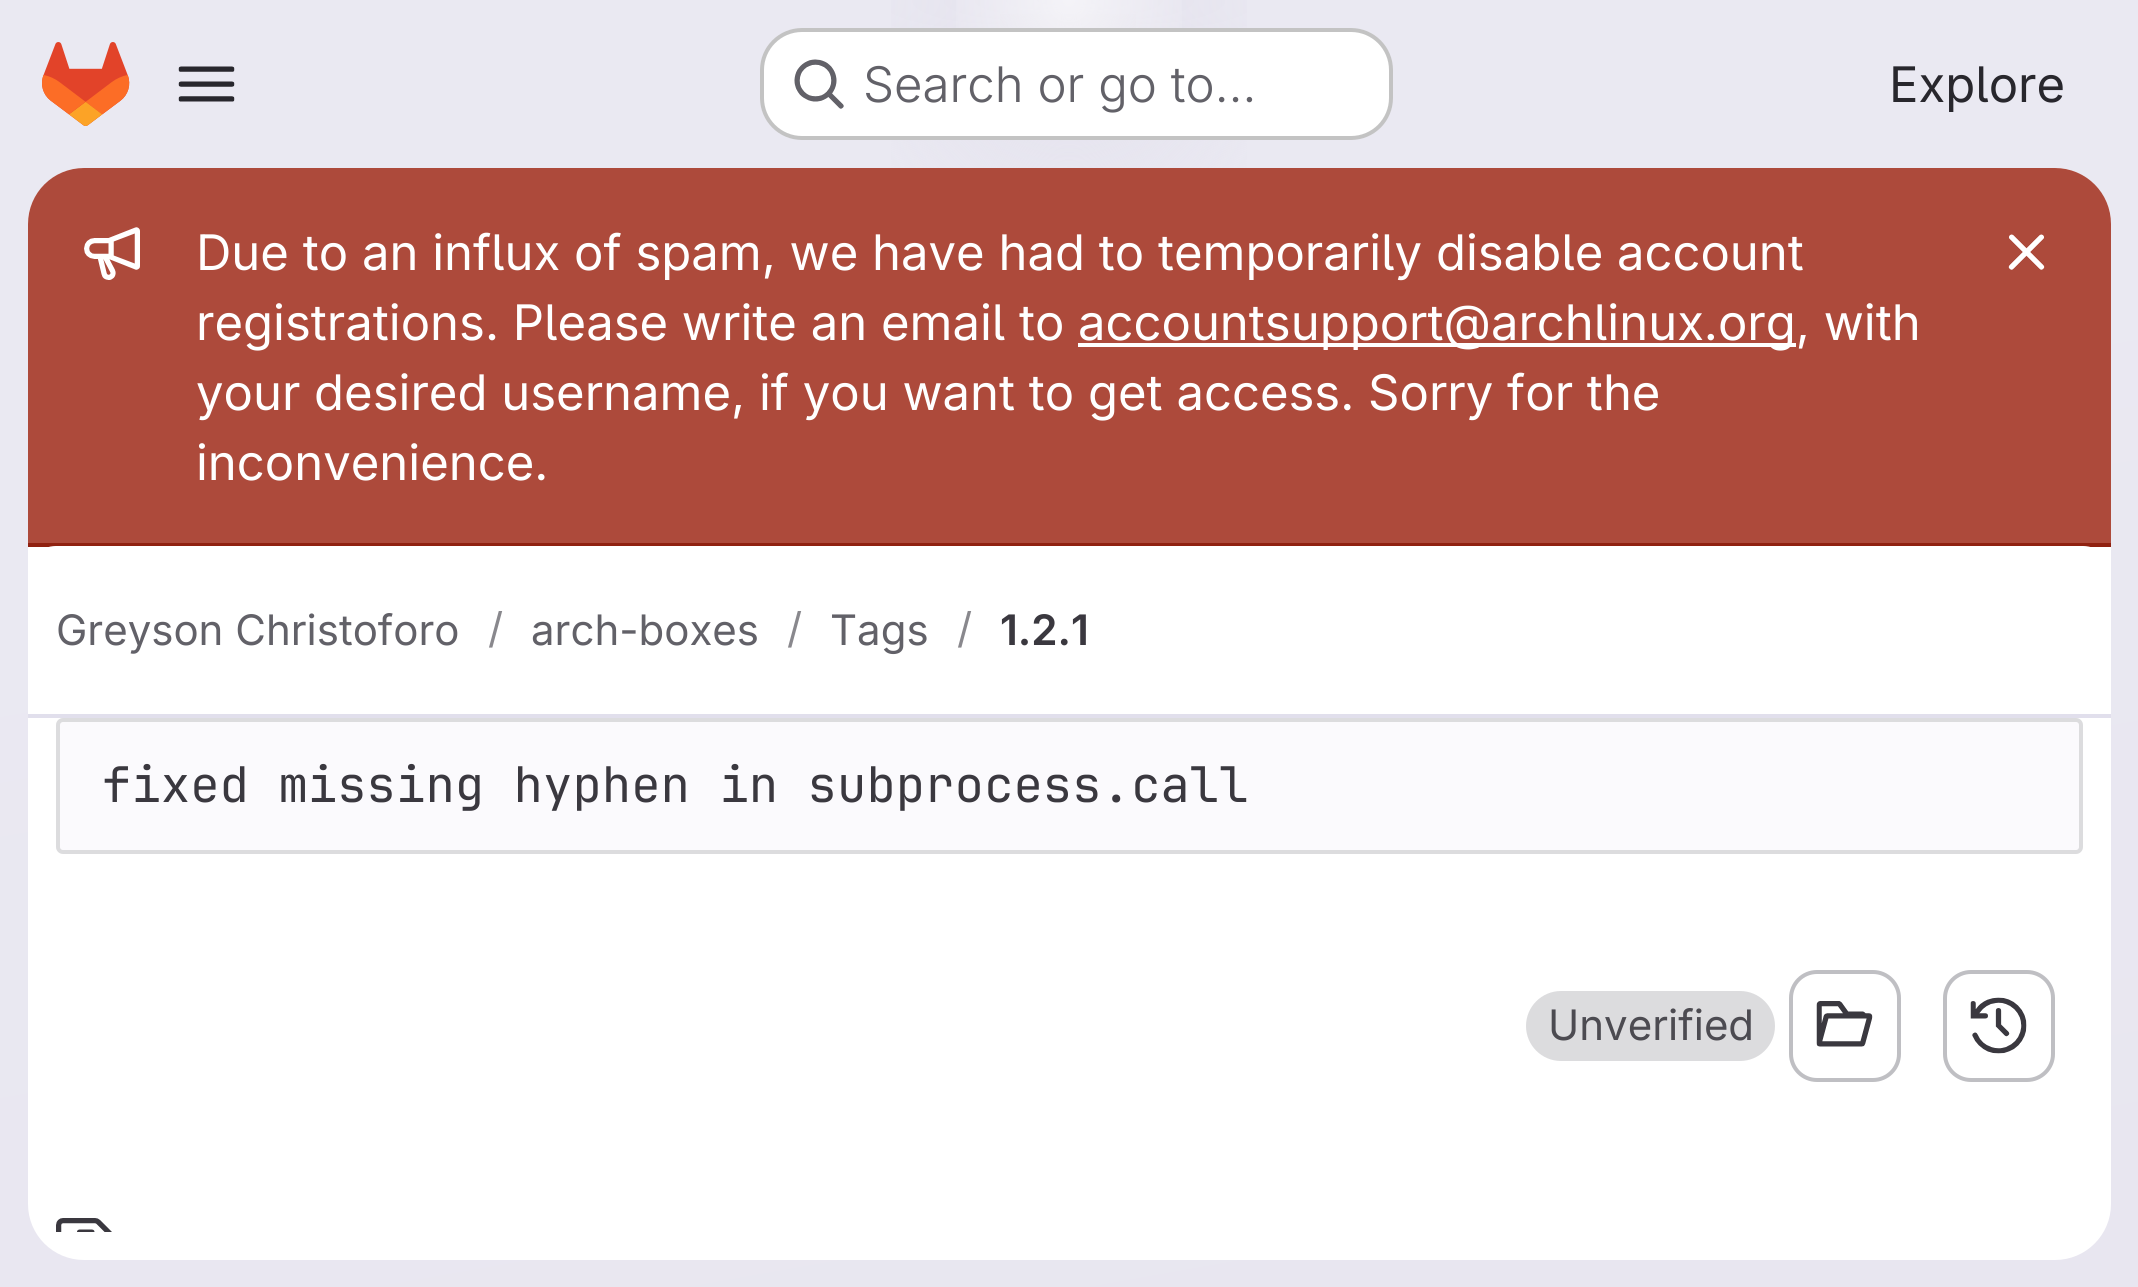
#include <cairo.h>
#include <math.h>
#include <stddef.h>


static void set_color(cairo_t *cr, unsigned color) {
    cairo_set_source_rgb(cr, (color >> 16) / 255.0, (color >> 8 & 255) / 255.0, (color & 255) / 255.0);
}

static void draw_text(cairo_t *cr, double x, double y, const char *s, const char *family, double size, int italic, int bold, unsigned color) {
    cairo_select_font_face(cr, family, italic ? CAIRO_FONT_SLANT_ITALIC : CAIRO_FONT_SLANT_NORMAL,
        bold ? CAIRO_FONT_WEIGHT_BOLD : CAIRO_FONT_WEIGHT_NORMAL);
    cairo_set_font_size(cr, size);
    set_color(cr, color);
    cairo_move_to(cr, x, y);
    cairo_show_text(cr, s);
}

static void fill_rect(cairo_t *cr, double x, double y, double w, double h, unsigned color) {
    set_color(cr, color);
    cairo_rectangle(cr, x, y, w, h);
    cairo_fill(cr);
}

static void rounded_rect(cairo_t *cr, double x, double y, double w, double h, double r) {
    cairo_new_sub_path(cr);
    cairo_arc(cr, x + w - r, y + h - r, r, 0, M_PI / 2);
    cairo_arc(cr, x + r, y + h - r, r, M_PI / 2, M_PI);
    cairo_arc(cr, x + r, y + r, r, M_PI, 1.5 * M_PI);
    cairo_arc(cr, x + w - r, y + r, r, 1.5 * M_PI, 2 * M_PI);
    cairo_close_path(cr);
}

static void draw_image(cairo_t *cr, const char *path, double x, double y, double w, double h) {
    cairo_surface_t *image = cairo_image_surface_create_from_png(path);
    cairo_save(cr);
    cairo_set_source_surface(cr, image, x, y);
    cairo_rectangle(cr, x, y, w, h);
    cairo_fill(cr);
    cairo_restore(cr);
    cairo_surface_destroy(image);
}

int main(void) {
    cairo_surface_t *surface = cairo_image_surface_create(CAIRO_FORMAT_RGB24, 2138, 1287);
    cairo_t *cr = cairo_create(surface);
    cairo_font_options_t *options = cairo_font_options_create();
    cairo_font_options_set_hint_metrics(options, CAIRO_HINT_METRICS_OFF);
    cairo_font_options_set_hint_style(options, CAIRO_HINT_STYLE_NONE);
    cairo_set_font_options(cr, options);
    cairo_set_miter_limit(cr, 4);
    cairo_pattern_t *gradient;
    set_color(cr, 0xFFFFFF);
    cairo_paint(cr);
    gradient = cairo_pattern_create_linear(1212, 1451, 927, -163);
    cairo_pattern_add_color_stop_rgba(gradient, 0, 0.91, 0.902, 0.941, 1);
    cairo_pattern_add_color_stop_rgba(gradient, 0.7, 0.918, 0.914, 0.949, 1);
    cairo_set_source(cr, gradient);
    cairo_pattern_destroy(gradient);
    cairo_rectangle(cr, 0, 0, 2138, 1287);
    cairo_fill(cr);
    gradient = cairo_pattern_create_radial(0, 0, 0, 0, 0, 1);
    cairo_pattern_set_matrix(gradient, &(cairo_matrix_t){1.0 / 1069, 0, 0, 1.0 / 1288, -1.0 * 1069 / 1069, -1.0 * 0 / 1288});
    cairo_pattern_add_color_stop_rgba(gradient, 0, 0.894, 0.886, 0.929, 1);
    cairo_pattern_add_color_stop_rgba(gradient, 0.23, 0.894, 0.886, 0.929, 0);
    cairo_set_source(cr, gradient);
    cairo_pattern_destroy(gradient);
    cairo_rectangle(cr, 891, 0, 356, 168);
    cairo_fill(cr);
    gradient = cairo_pattern_create_radial(0, 0, 0, 0, 0, 1);
    cairo_pattern_set_matrix(gradient, &(cairo_matrix_t){1.0 / 1069, 0, 0, 1.0 / 1288, -1.0 * 1069 / 1069, -1.0 * 0 / 1288});
    cairo_pattern_add_color_stop_rgba(gradient, 0, 0.894, 0.886, 0.925, 1);
    cairo_pattern_add_color_stop_rgba(gradient, 0.16, 0.894, 0.886, 0.925, 0);
    cairo_set_source(cr, gradient);
    cairo_pattern_destroy(gradient);
    cairo_rectangle(cr, 1000, 14, 136, 70);
    cairo_fill(cr);
    gradient = cairo_pattern_create_radial(1069, 0, 0, 1069, 0, 1674);
    cairo_pattern_add_color_stop_rgba(gradient, 0, 1, 1, 1, 0.6);
    cairo_pattern_add_color_stop_rgba(gradient, 0.08, 1, 1, 1, 0);
    cairo_set_source(cr, gradient);
    cairo_pattern_destroy(gradient);
    cairo_rectangle(cr, 956, 0, 226, 28);
    cairo_fill(cr);
    draw_image(cr, "assets/img1.png", 42, 42, 88, 84);
    draw_image(cr, "assets/img2.png", 178, 66, 57, 36);
    set_color(cr, 0xFFFFFF);
    rounded_rect(cr, 760, 28, 633, 112, 42);
    cairo_fill(cr);
    rounded_rect(cr, 762, 30, 629, 108, 40);
    cairo_set_source_rgba(cr, 0.02, 0.02, 0.024, 0.24);
    cairo_set_line_width(cr, 4);
    cairo_stroke(cr);
    draw_image(cr, "assets/img3.png", 794, 59, 50, 50);
    draw_text(cr, 863, 102, "Search or go to…", "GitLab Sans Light", 49, 0, 0, 0x626168);
    draw_text(cr, 1889, 102, "Explore", "GitLab Sans", 49, 0, 0, 0x28272D);
    set_color(cr, 0xFFFFFF);
    rounded_rect(cr, 28, 168, 2083, 1092, 56);
    cairo_fill(cr);
    set_color(cr, 0xAD4A3B);
    cairo_new_path(cr);
    cairo_move_to(cr, 84, 168);
    cairo_line_to(cr, 2055, 168);
    cairo_curve_to(cr, 2086, 168, 2111, 193, 2111, 224);
    cairo_line_to(cr, 2111, 546);
    cairo_line_to(cr, 28, 546);
    cairo_line_to(cr, 28, 224);
    cairo_curve_to(cr, 28, 193, 53, 168, 84, 168);
    cairo_close_path(cr);
    cairo_fill(cr);
    fill_rect(cr, 28, 543, 2083, 4, 0x8F2110);
    draw_image(cr, "assets/img4.png", 84, 227, 56, 53);
    draw_text(cr, 196, 270, "Due to an influx of spam, we have had to temporarily disable account", "GitLab Sans", 49, 0, 0, 0xFFFFFF);
    draw_text(cr, 196, 340, "registrations. Please write an email to", "GitLab Sans", 49, 0, 0, 0xFFFFFF);
    fill_rect(cr, 1078, 343, 718, 4, 0xFFFFFF);
    draw_text(cr, 1078, 340, "accountsupport@archlinux.org, with", "GitLab Sans", 49, 0, 0, 0xFFFFFF);
    draw_text(cr, 196, 410, "your desired username, if you want to get access. Sorry for the", "GitLab Sans", 49, 0, 0, 0xFFFFFF);
    draw_text(cr, 196, 480, "inconvenience.", "GitLab Sans", 49, 0, 0, 0xFFFFFF);
    draw_image(cr, "assets/img5.png", 2008, 234, 37, 36);
    cairo_new_path(cr);
    cairo_move_to(cr, 56, 546);
    cairo_line_to(cr, 2083, 546);
    cairo_curve_to(cr, 2098.5, 546, 2111, 558.5, 2111, 574);
    cairo_line_to(cr, 2111, 718);
    cairo_line_to(cr, 28, 718);
    cairo_line_to(cr, 28, 574);
    cairo_curve_to(cr, 28, 558.5, 40.5, 546, 56, 546);
    cairo_close_path(cr);
    cairo_fill(cr);
    fill_rect(cr, 28, 714, 2083, 4, 0xE1DFEC);
    draw_text(cr, 56, 645, "Greyson Christoforo", "GitLab Sans", 42, 0, 0, 0x626168);
    draw_text(cr, 488, 643, "/", "GitLab Sans", 42, 0, 0, 0x89888D);
    draw_text(cr, 531, 645, "arch-boxes", "GitLab Sans", 42, 0, 0, 0x626168);
    draw_text(cr, 787, 643, "/", "GitLab Sans", 42, 0, 0, 0x89888D);
    draw_text(cr, 830, 645, "Tags", "GitLab Sans", 42, 0, 0, 0x626168);
    draw_text(cr, 957, 643, "/", "GitLab Sans", 42, 0, 0, 0x89888D);
    draw_text(cr, 1000, 645, "1.2.1", "GitLab Sans SemiBold", 42, 0, 0, 0x3A383F);
    set_color(cr, 0xFBFAFD);
    rounded_rect(cr, 58, 720, 2023, 132, 5);
    cairo_fill_preserve(cr);
    set_color(cr, 0xDCDCDE);
    cairo_stroke(cr);
    draw_text(cr, 102, 802, "fixed missing hyphen in subprocess.call", "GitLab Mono", 49, 0, 0, 0x3A383F);
    set_color(cr, 0xDCDCDE);
    rounded_rect(cr, 1526, 991, 249, 70, 35);
    cairo_fill(cr);
    draw_text(cr, 1548, 1040, "Unverified", "GitLab Sans", 42, 0, 0, 0x4C4B51);
    rounded_rect(cr, 1791, 972, 108, 108, 26);
    set_color(cr, 0xBFBFC3);
    cairo_stroke(cr);
    draw_image(cr, "assets/img6.png", 1816, 1001, 57, 46);
    rounded_rect(cr, 1945, 972, 108, 108, 26);
    cairo_stroke(cr);
    draw_image(cr, "assets/img7.png", 1970, 997, 57, 57);
    draw_image(cr, "assets/img8.png", 56, 1218, 56, 14);
    cairo_surface_write_to_png(surface, "output.png");
    cairo_font_options_destroy(options);
    cairo_destroy(cr);
    cairo_surface_destroy(surface);
    return 0;
}
